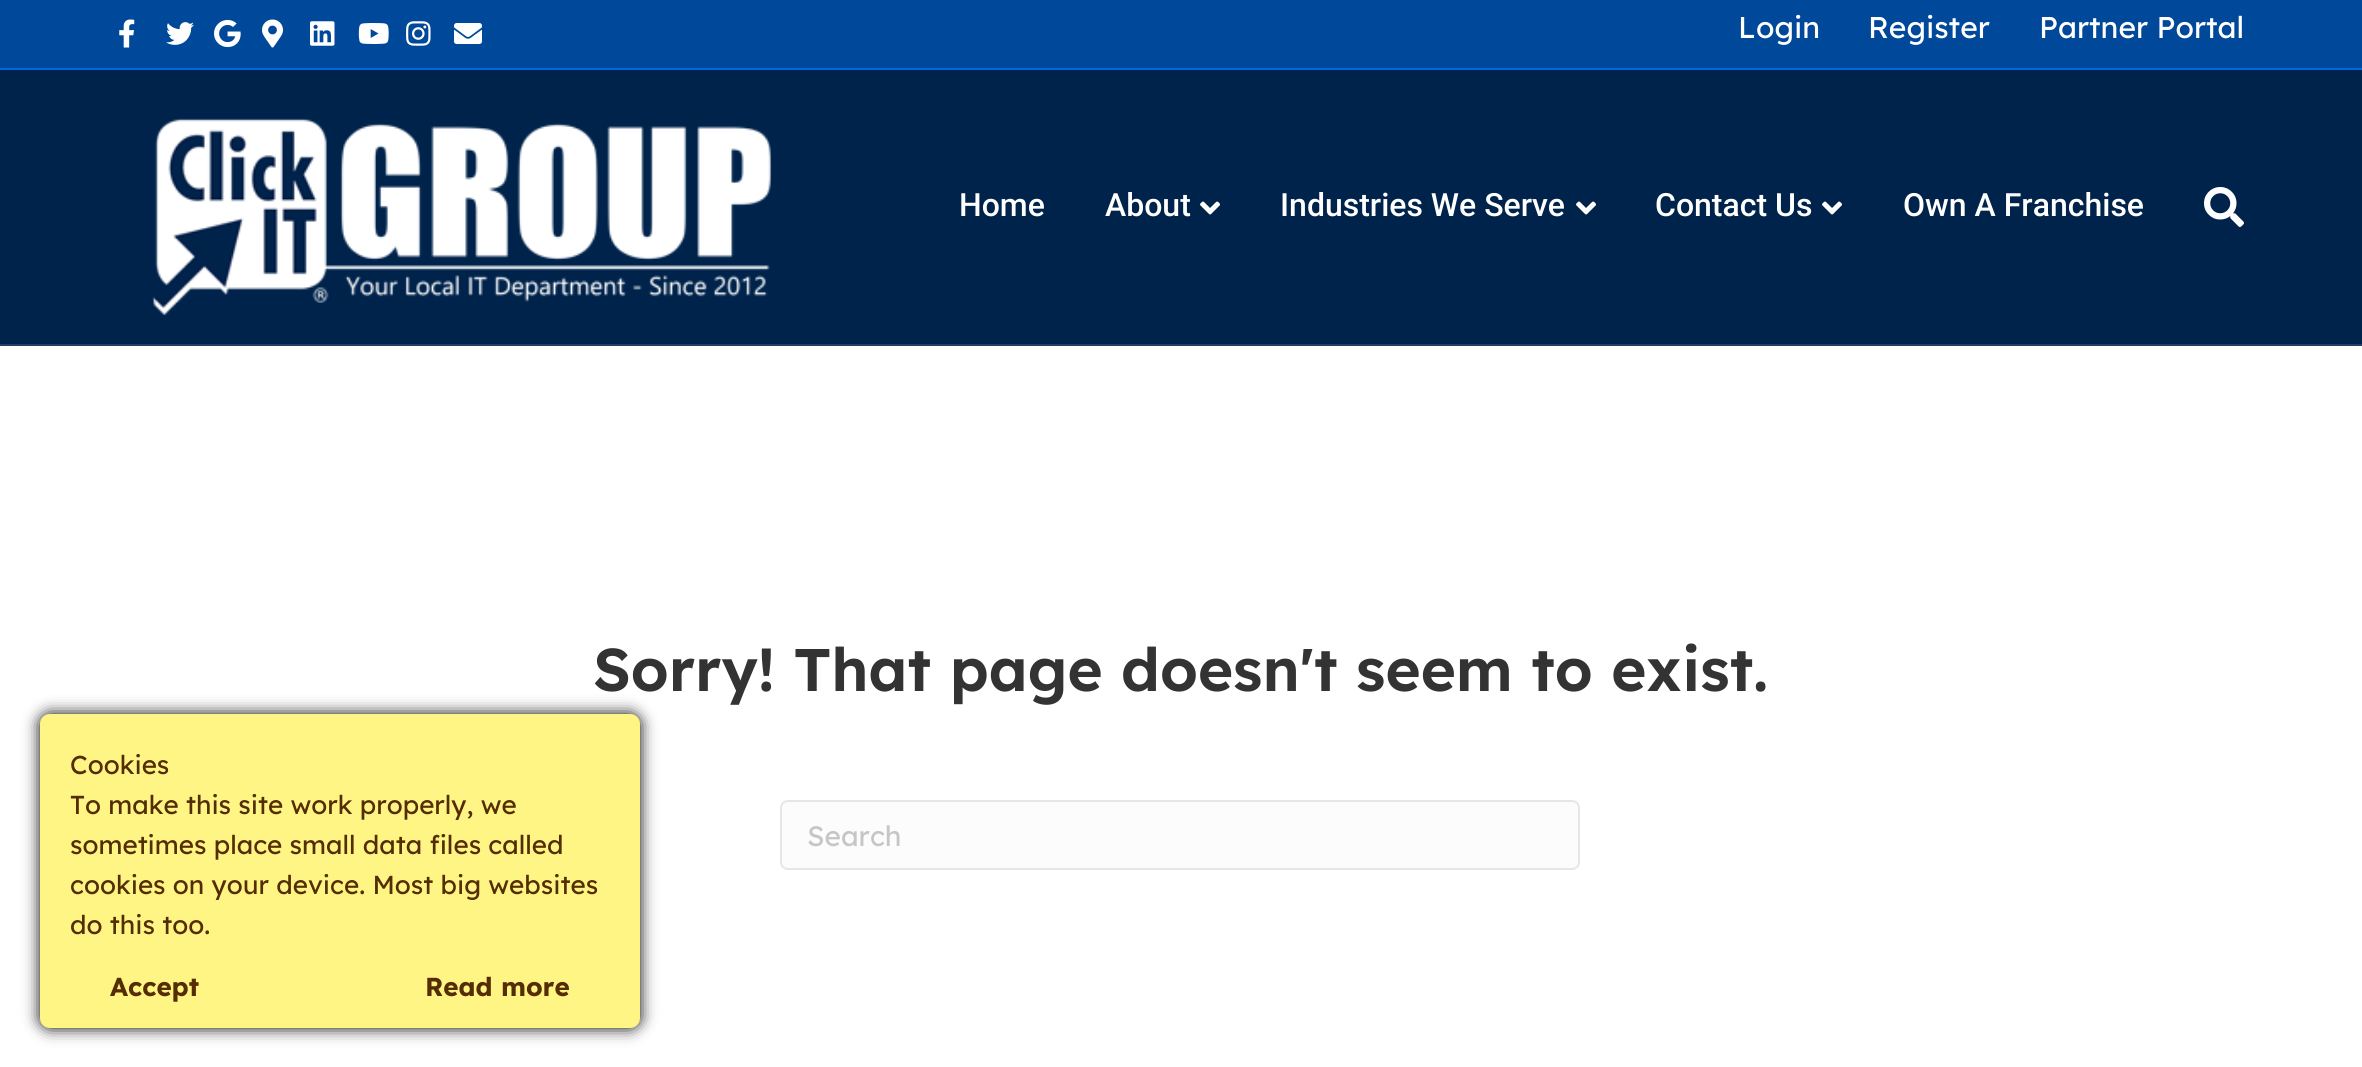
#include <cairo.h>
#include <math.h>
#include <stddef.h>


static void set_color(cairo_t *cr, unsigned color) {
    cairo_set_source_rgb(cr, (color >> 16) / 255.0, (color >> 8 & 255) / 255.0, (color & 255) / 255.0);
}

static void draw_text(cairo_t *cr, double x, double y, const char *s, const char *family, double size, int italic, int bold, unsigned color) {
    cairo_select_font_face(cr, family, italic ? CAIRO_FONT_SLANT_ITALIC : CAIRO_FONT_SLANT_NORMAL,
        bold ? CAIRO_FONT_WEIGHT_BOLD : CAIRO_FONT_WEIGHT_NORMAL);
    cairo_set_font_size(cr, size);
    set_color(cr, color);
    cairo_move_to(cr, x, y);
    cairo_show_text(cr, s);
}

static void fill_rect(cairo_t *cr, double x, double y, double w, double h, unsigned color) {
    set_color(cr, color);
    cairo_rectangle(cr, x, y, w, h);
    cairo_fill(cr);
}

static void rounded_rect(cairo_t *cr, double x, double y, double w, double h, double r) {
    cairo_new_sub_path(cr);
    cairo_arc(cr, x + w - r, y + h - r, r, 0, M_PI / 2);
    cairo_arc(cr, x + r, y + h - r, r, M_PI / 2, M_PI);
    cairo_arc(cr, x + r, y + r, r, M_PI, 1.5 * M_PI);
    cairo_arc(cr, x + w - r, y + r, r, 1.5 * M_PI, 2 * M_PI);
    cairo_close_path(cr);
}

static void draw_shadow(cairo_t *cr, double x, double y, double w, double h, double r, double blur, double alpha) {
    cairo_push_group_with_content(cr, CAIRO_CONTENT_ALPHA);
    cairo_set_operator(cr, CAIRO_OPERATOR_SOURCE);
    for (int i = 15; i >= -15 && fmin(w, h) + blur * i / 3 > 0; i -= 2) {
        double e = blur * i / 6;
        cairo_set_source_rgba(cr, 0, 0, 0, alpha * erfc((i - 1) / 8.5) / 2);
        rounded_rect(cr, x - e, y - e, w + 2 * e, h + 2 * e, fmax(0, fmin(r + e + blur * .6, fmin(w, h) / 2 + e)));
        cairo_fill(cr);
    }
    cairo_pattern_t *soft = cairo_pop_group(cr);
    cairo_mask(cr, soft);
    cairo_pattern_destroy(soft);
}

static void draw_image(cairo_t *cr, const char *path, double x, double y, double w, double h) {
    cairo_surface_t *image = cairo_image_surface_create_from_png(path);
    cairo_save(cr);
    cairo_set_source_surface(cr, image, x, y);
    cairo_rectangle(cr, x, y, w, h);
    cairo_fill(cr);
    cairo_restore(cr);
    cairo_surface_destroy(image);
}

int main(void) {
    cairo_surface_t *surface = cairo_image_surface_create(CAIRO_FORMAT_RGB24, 2362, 1067);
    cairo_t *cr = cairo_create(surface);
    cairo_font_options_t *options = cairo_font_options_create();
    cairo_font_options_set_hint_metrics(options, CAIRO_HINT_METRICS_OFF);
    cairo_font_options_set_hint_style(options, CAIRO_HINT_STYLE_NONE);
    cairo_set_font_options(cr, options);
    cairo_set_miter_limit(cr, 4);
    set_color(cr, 0x00489A);
    cairo_paint(cr);
    fill_rect(cr, 0, 68, 2362, 2, 0x0067DC);
    draw_image(cr, "assets/img1.png", 119, 19, 16, 29);
    draw_image(cr, "assets/img2.png", 166, 22, 28, 23);
    draw_image(cr, "assets/img3.png", 214, 19, 27, 29);
    draw_image(cr, "assets/img4.png", 262, 19, 21, 29);
    draw_image(cr, "assets/img5.png", 310, 21, 25, 25);
    draw_image(cr, "assets/img6.png", 358, 23, 31, 21);
    draw_image(cr, "assets/img7.png", 406, 21, 25, 25);
    draw_image(cr, "assets/img8.png", 454, 23, 28, 21);
    draw_text(cr, 1738, 38, "Login", "Lexend", 30, 0, 0, 0xFFFFFF);
    draw_text(cr, 1868, 38, "Register", "Lexend", 30, 0, 0, 0xFFFFFF);
    draw_text(cr, 2039, 38, "Partner Portal", "Lexend", 30, 0, 0, 0xFFFFFF);
    fill_rect(cr, 0, 70, 2362, 274, 0x00234B);
    fill_rect(cr, 0, 344, 2362, 2, 0x214062);
    draw_image(cr, "assets/img9.png", 152, 118, 620, 198);
    draw_text(cr, 959, 216, "Home", "Roboto Medium", 32, 0, 0, 0xFFFFFF);
    draw_text(cr, 1105, 216, "About", "Roboto Medium", 32, 0, 0, 0xFFFFFF);
    draw_image(cr, "assets/img10.png", 1200, 201, 20, 14);
    draw_text(cr, 1280, 216, "Industries We Serve", "Roboto Medium", 32, 0, 0, 0xFFFFFF);
    draw_image(cr, "assets/img10.png", 1576, 201, 20, 14);
    draw_text(cr, 1655, 216, "Contact Us", "Roboto Medium", 32, 0, 0, 0xFFFFFF);
    draw_image(cr, "assets/img10.png", 1822, 201, 20, 14);
    draw_text(cr, 1903, 216, "Own A Franchise", "Roboto Medium", 32, 0, 0, 0xFFFFFF);
    draw_image(cr, "assets/img11.png", 2204, 187, 40, 40);
    fill_rect(cr, 0, 346, 2362, 721, 0xFFFFFF);
    draw_text(cr, 593, 691, "Sorry! That page doesn't seem to exist.", "Lexend SemiBold", 60, 0, 0, 0x333333);
    set_color(cr, 0xFCFCFC);
    rounded_rect(cr, 781, 801, 798, 68, 7);
    cairo_fill_preserve(cr);
    set_color(cr, 0xE6E6E6);
    cairo_stroke(cr);
    draw_text(cr, 807, 846, "Search", "Lexend", 28, 0, 0, 0xC6C6C6);
    set_color(cr, 0x000000);
    draw_shadow(cr, 40, 714, 600, 314, 10, 8, 1);
    set_color(cr, 0xFFF584);
    rounded_rect(cr, 40, 714, 600, 314, 10);
    cairo_fill(cr);
    draw_text(cr, 70, 774, "Cookies", "Lexend", 26, 0, 0, 0x542D04);
    draw_text(cr, 70, 814, "To make this site work properly, we", "Lexend", 26, 0, 0, 0x542D04);
    draw_text(cr, 70, 854, "sometimes place small data files called", "Lexend", 26, 0, 0, 0x542D04);
    draw_text(cr, 70, 894, "cookies on your device. Most big websites", "Lexend", 26, 0, 0, 0x542D04);
    draw_text(cr, 70, 934, "do this too.", "Lexend", 26, 0, 0, 0x542D04);
    draw_text(cr, 110, 996, "Accept", "Lexend", 26, 0, 1, 0x542D04);
    draw_text(cr, 425, 996, "Read more", "Lexend", 26, 0, 1, 0x542D04);
    cairo_surface_write_to_png(surface, "output.png");
    cairo_font_options_destroy(options);
    cairo_destroy(cr);
    cairo_surface_destroy(surface);
    return 0;
}
